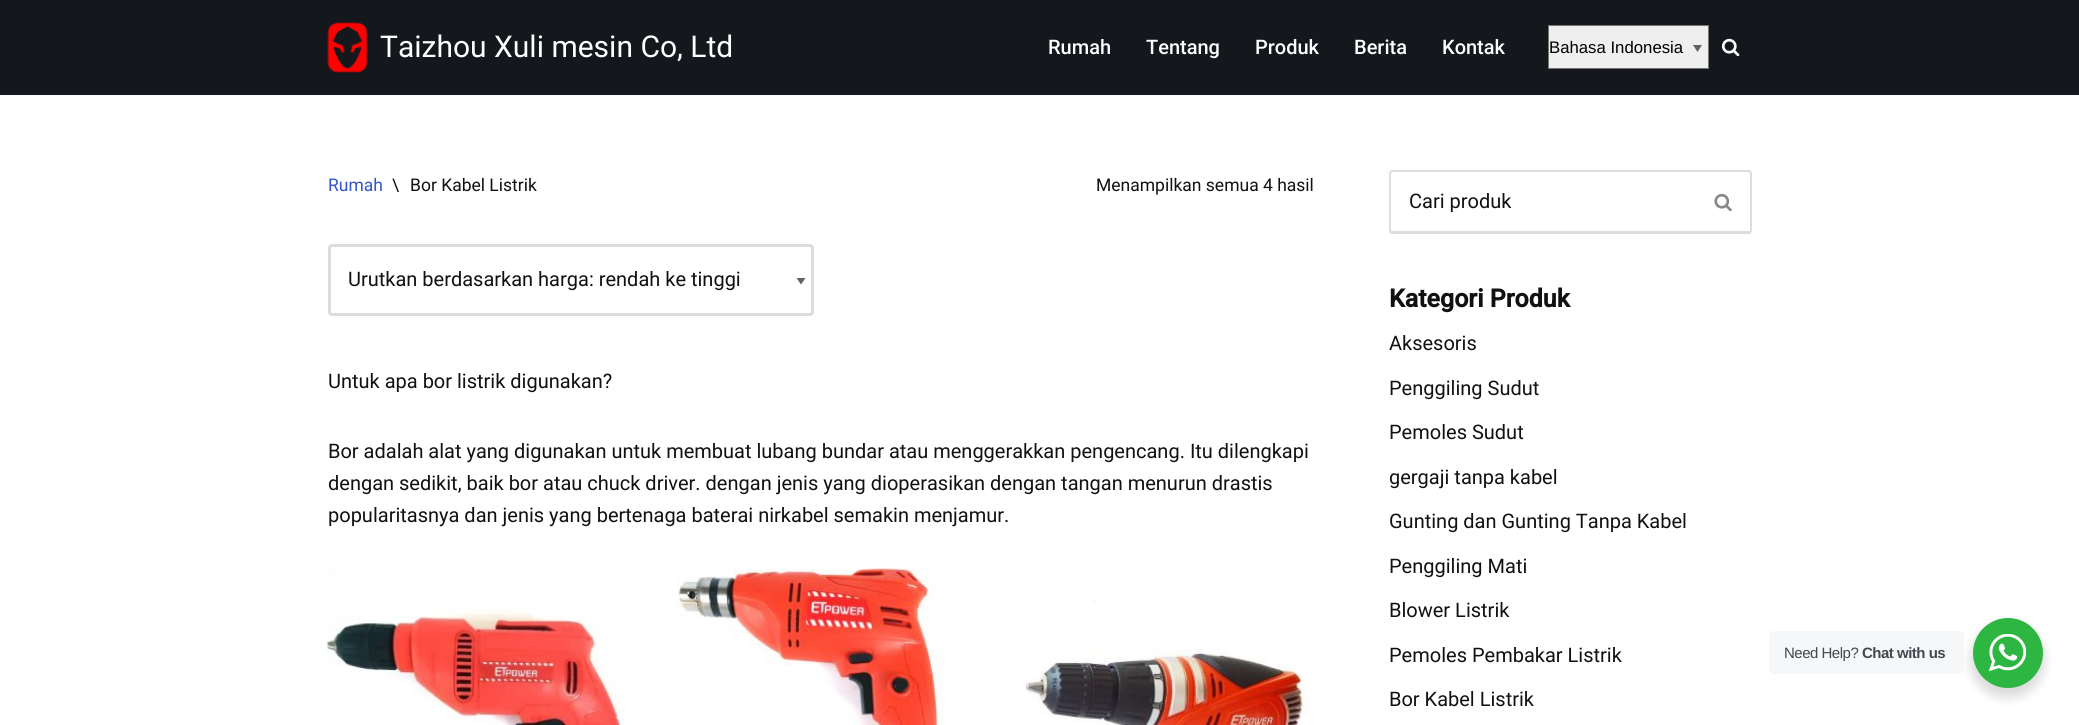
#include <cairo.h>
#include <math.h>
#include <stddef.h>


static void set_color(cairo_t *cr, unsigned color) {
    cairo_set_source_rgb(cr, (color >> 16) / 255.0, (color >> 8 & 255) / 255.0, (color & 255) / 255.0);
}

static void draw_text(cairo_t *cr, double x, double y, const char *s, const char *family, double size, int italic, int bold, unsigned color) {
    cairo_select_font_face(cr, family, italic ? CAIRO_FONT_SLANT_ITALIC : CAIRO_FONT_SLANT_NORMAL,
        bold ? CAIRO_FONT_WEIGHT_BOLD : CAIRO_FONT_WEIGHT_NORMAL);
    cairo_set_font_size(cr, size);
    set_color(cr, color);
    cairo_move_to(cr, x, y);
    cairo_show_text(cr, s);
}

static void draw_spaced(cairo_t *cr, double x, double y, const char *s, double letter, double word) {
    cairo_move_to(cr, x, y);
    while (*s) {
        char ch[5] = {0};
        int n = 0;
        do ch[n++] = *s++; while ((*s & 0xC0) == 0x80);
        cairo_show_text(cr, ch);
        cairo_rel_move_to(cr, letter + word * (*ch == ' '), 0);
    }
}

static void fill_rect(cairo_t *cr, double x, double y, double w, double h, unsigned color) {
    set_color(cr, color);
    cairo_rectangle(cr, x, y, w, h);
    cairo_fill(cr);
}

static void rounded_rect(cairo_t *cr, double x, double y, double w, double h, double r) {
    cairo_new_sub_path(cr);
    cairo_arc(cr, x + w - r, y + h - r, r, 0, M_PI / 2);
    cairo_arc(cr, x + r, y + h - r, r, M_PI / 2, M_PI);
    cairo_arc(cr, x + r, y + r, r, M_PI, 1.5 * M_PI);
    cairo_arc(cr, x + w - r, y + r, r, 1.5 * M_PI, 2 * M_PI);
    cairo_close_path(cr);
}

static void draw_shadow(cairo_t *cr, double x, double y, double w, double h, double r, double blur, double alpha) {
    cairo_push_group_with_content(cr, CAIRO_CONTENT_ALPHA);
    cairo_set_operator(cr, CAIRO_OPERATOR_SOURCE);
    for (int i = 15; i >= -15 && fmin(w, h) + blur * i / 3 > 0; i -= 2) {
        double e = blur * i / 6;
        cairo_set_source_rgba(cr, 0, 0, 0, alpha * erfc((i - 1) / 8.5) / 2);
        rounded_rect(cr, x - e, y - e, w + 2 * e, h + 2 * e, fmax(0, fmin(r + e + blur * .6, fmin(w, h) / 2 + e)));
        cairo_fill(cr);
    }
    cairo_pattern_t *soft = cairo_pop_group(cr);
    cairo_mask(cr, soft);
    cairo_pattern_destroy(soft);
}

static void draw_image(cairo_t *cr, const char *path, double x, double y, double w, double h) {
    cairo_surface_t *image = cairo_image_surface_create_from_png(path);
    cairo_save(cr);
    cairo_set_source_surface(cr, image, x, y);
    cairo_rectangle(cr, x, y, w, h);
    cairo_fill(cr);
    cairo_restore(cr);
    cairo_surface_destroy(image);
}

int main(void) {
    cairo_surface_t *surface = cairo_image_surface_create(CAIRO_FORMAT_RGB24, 2079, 725);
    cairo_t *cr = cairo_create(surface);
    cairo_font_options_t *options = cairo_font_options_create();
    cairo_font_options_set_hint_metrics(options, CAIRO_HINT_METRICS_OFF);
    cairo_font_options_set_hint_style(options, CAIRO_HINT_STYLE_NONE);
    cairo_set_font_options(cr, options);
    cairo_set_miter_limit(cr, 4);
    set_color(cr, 0xFFFFFF);
    cairo_paint(cr);
    set_color(cr, 0x000000);
    draw_shadow(cr, 0, -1, 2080, 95, 0, 2, 0.1);
    fill_rect(cr, 0, 0, 2079, 95, 0x14171C);
    draw_image(cr, "assets/img1.png", 327, 22, 41, 51);
    draw_text(cr, 380, 57, "Taizhou Xuli mesin Co, Ltd", "Roboto", 30, 0, 0, 0xFFFFFF);
    draw_text(cr, 1048, 54, "Rumah", "Roboto Medium", 20, 0, 0, 0xFFFFFF);
    draw_text(cr, 1146, 54, "Tentang", "Roboto Medium", 20, 0, 0, 0xFFFFFF);
    draw_text(cr, 1255, 54, "Produk", "Roboto Medium", 20, 0, 0, 0xFFFFFF);
    draw_text(cr, 1354, 54, "Berita", "Roboto Medium", 20, 0, 0, 0xFFFFFF);
    draw_text(cr, 1442, 54, "Kontak", "Roboto Medium", 20, 0, 0, 0xFFFFFF);
    fill_rect(cr, 1549, 26, 159, 42, 0xEFEFEF);
    set_color(cr, 0x626262);
    cairo_new_path(cr);
    cairo_move_to(cr, 1702, 45);
    cairo_line_to(cr, 1697.5, 52);
    cairo_line_to(cr, 1693, 45);
    cairo_close_path(cr);
    cairo_fill(cr);
    cairo_rectangle(cr, 1548.5, 25.5, 160, 43);
    set_color(cr, 0x767676);
    cairo_set_line_width(cr, 1);
    cairo_stroke(cr);
    draw_text(cr, 1549, 53, "Bahasa Indonesia", "Liberation Sans", 16.75, 0, 0, 0x000000);
    draw_image(cr, "assets/img2.png", 1721, 38, 19, 18);
    draw_text(cr, 328, 191, "Rumah", "Roboto", 17.5, 0, 0, 0x3454CB);
    draw_text(cr, 392, 191, "\\", "Roboto", 17.5, 0, 0, 0x111111);
    draw_text(cr, 410, 191, "Bor Kabel Listrik", "Roboto", 17.5, 0, 0, 0x111111);
    draw_text(cr, 1096, 191, "Menampilkan semua 4 hasil", "Roboto", 17.5, 0, 0, 0x111111);
    set_color(cr, 0x626262);
    cairo_new_path(cr);
    cairo_move_to(cr, 805.5, 278);
    cairo_line_to(cr, 801, 284.5);
    cairo_line_to(cr, 796.5, 278);
    cairo_close_path(cr);
    cairo_fill(cr);
    rounded_rect(cr, 329.5, 245.5, 483, 69, 2.5);
    set_color(cr, 0xDDDDDD);
    cairo_set_line_width(cr, 3);
    cairo_stroke(cr);
    draw_text(cr, 348, 286, "Urutkan berdasarkan harga: rendah ke tinggi", "Roboto", 20, 0, 0, 0x111111);
    draw_text(cr, 328, 388, "Untuk apa bor listrik digunakan?", "Roboto", 20, 0, 0, 0x111111);
    draw_text(cr, 328, 458, "Bor adalah alat yang digunakan untuk membuat lubang bundar atau menggerakkan pengencang. Itu dilengkapi", "Roboto", 20, 0, 0, 0x111111);
    draw_text(cr, 328, 490, "dengan sedikit, baik bor atau chuck driver. dengan jenis yang dioperasikan dengan tangan menurun drastis", "Roboto", 20, 0, 0, 0x111111);
    draw_text(cr, 328, 522, "popularitasnya dan jenis yang bertenaga baterai nirkabel semakin menjamur.", "Roboto", 20, 0, 0, 0x111111);
    draw_image(cr, "assets/img3.png", 327, 569, 300, 156);
    draw_image(cr, "assets/img4.png", 677, 568, 266, 157);
    draw_image(cr, "assets/img5.png", 1025, 599, 284, 126);
    set_color(cr, 0xDDDDDD);
    cairo_set_fill_rule(cr, CAIRO_FILL_RULE_EVEN_ODD);
    cairo_new_path(cr);
    cairo_move_to(cr, 1392, 170);
    cairo_line_to(cr, 1696, 170);
    cairo_line_to(cr, 1696, 234);
    cairo_line_to(cr, 1392, 234);
    cairo_curve_to(cr, 1390, 234, 1389, 232, 1389, 230);
    cairo_line_to(cr, 1389, 174);
    cairo_curve_to(cr, 1389, 172, 1390, 170, 1392, 170);
    cairo_close_path(cr);
    cairo_move_to(cr, 1392, 172);
    cairo_line_to(cr, 1696, 172);
    cairo_line_to(cr, 1696, 231);
    cairo_line_to(cr, 1392, 231);
    cairo_curve_to(cr, 1392, 231, 1391, 231, 1391, 230);
    cairo_line_to(cr, 1391, 174);
    cairo_curve_to(cr, 1391, 173, 1392, 172, 1392, 172);
    cairo_close_path(cr);
    cairo_fill(cr);
    draw_text(cr, 1409, 208, "Cari produk", "Roboto", 20, 0, 0, 0x111111);
    set_color(cr, 0xDDDDDD);
    cairo_new_path(cr);
    cairo_move_to(cr, 1696, 170);
    cairo_line_to(cr, 1749, 170);
    cairo_curve_to(cr, 1751, 170, 1752, 172, 1752, 174);
    cairo_line_to(cr, 1752, 230);
    cairo_curve_to(cr, 1752, 232, 1751, 234, 1749, 234);
    cairo_line_to(cr, 1696, 234);
    cairo_close_path(cr);
    cairo_move_to(cr, 1696, 172);
    cairo_line_to(cr, 1749, 172);
    cairo_curve_to(cr, 1749, 172, 1750, 173, 1750, 174);
    cairo_line_to(cr, 1750, 230);
    cairo_curve_to(cr, 1750, 231, 1749, 231, 1749, 231);
    cairo_line_to(cr, 1696, 231);
    cairo_close_path(cr);
    cairo_fill(cr);
    draw_image(cr, "assets/img6.png", 1714, 193, 18, 18);
    draw_text(cr, 1389, 307, "Kategori Produk", "Roboto", 25, 0, 1, 0x111111);
    draw_text(cr, 1389, 350, "Aksesoris", "Roboto", 20, 0, 0, 0x111111);
    draw_text(cr, 1389, 395, "Penggiling Sudut", "Roboto", 20, 0, 0, 0x111111);
    draw_text(cr, 1389, 439, "Pemoles Sudut", "Roboto", 20, 0, 0, 0x111111);
    draw_text(cr, 1389, 484, "gergaji tanpa kabel", "Roboto", 20, 0, 0, 0x111111);
    draw_text(cr, 1389, 528, "Gunting dan Gunting Tanpa Kabel", "Roboto", 20, 0, 0, 0x111111);
    draw_text(cr, 1389, 573, "Penggiling Mati", "Roboto", 20, 0, 0, 0x111111);
    draw_text(cr, 1389, 617, "Blower Listrik", "Roboto", 20, 0, 0, 0x111111);
    draw_text(cr, 1389, 662, "Pemoles Pembakar Listrik", "Roboto", 20, 0, 0, 0x111111);
    draw_text(cr, 1389, 706, "Bor Kabel Listrik", "Roboto", 20, 0, 0, 0x111111);
    set_color(cr, 0x000000);
    draw_shadow(cr, 1970, 623, 75, 75, 37.5, 5, 0.14);
    set_color(cr, 0xF5F7F9);
    rounded_rect(cr, 1769, 631, 195, 43, 5);
    cairo_fill(cr);
    cairo_select_font_face(cr, "Liberation Sans", CAIRO_FONT_SLANT_NORMAL, CAIRO_FONT_WEIGHT_NORMAL);
    cairo_set_font_size(cr, 15);
    set_color(cr, 0x43474E);
    draw_spaced(cr, 1784, 658, "Need Help?", -0.5, 0);
    cairo_select_font_face(cr, "Liberation Sans", CAIRO_FONT_SLANT_NORMAL, CAIRO_FONT_WEIGHT_BOLD);
    draw_spaced(cr, 1862, 658, "Chat with us", -0.5, 0);
    set_color(cr, 0x2DB742);
    cairo_new_path(cr);
    cairo_arc(cr, 2008, 653, 35, 0, 2 * M_PI);
    cairo_fill(cr);
    draw_image(cr, "assets/img7.png", 1989, 634, 37, 37);
    cairo_surface_write_to_png(surface, "output.png");
    cairo_font_options_destroy(options);
    cairo_destroy(cr);
    cairo_surface_destroy(surface);
    return 0;
}
